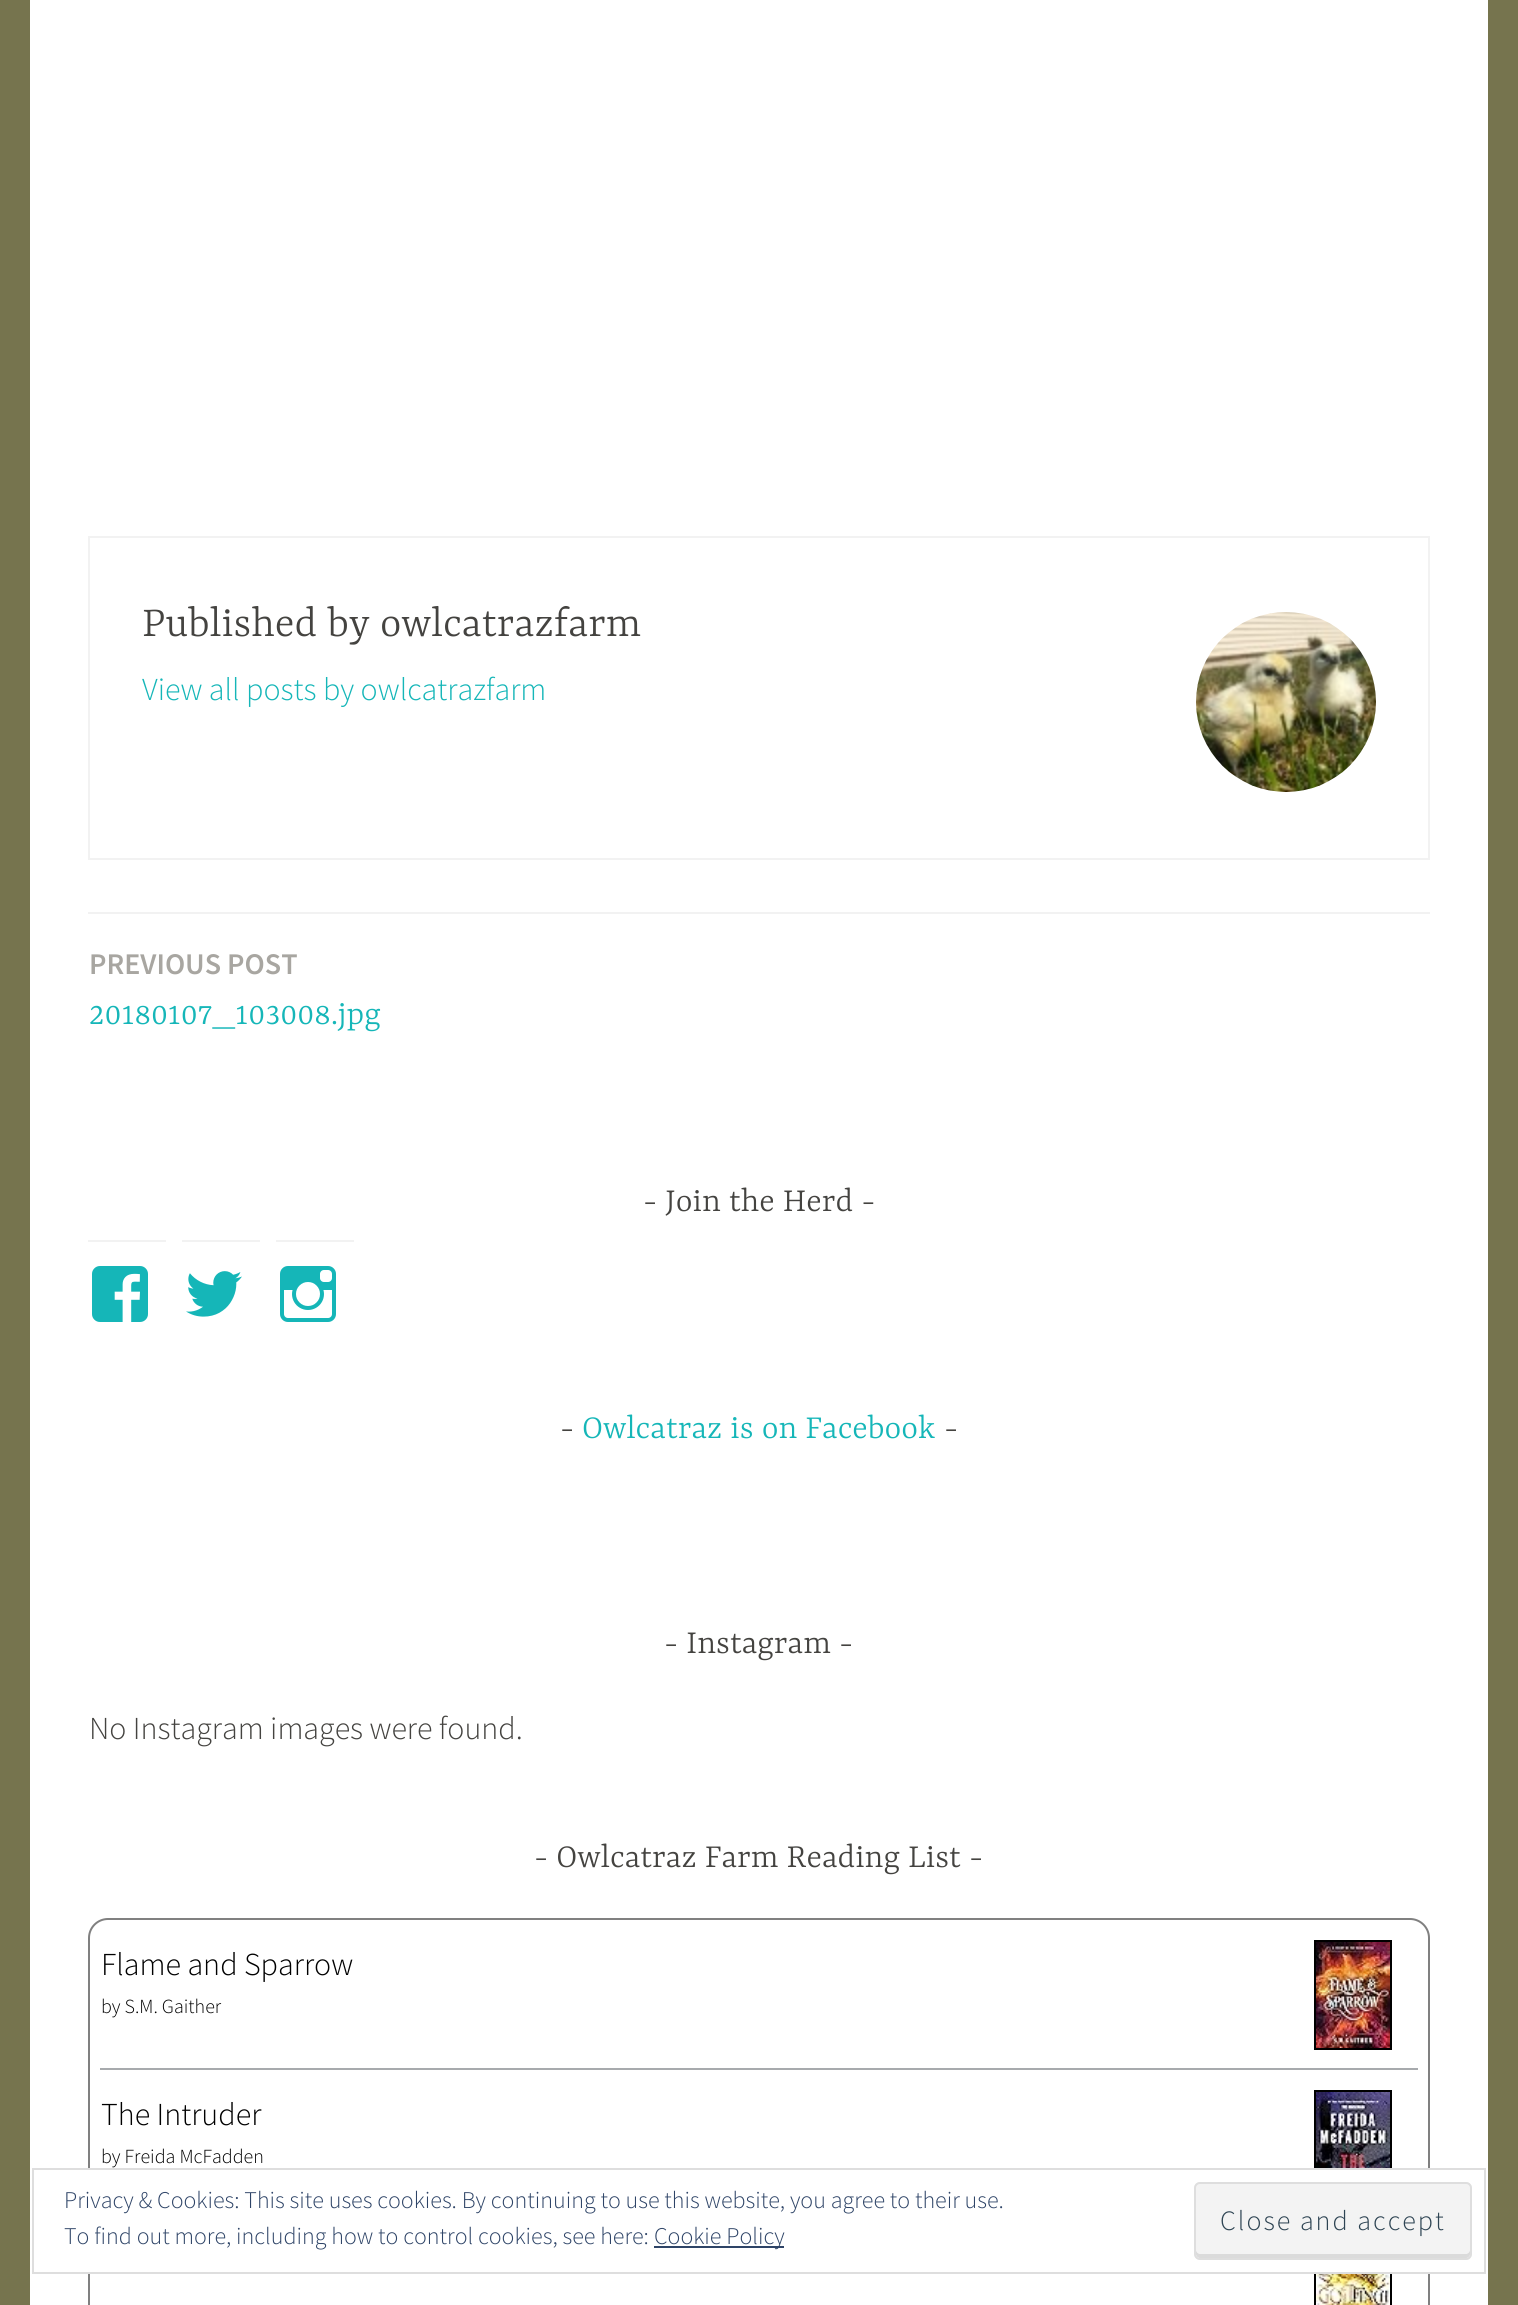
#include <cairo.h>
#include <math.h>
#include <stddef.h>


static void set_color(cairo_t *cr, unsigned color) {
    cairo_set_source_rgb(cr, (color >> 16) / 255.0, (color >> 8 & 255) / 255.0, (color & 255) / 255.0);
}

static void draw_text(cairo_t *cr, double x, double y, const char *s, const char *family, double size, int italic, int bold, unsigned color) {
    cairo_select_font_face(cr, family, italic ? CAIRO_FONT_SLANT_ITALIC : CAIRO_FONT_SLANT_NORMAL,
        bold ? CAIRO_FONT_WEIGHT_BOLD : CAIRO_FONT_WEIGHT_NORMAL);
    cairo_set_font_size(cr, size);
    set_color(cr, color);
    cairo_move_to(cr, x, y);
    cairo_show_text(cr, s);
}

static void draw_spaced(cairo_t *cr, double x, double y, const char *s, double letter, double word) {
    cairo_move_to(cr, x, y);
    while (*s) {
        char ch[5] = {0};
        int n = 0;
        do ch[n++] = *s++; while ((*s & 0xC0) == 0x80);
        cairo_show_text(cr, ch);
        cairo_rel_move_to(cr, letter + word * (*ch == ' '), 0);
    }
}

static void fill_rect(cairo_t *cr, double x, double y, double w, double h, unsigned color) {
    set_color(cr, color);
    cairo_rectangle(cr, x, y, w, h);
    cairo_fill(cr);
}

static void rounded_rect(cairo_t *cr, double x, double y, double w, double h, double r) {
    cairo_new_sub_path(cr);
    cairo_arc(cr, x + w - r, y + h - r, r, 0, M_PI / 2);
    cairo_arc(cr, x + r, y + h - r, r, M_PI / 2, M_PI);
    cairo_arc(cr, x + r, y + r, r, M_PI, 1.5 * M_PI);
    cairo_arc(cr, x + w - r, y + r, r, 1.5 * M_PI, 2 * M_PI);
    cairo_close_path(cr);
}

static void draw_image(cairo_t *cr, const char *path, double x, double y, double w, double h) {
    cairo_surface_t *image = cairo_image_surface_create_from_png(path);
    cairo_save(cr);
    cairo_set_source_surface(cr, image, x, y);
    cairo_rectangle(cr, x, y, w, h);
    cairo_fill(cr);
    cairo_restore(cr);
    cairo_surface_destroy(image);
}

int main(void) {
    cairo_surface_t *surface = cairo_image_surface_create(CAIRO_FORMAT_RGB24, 1518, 2305);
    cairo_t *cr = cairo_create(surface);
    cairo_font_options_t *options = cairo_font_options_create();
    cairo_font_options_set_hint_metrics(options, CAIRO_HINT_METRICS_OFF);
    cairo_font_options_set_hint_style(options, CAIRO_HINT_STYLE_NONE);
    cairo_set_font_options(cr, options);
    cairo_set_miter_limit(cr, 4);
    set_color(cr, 0x76744E);
    cairo_paint(cr);
    fill_rect(cr, 30, 0, 1458, 2305, 0xFFFFFF);
    cairo_rectangle(cr, 89, 537, 1340, 322);
    set_color(cr, 0xF2F2F2);
    cairo_stroke(cr);
    draw_text(cr, 142, 636, "Published by owlcatrazfarm", "Yrsa Light", 46, 0, 0, 0x444340);
    draw_image(cr, "assets/img1.png", 1196, 612, 180, 180);
    draw_text(cr, 142, 700, "View all posts by owlcatrazfarm", "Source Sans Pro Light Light", 32, 0, 0, 0x15B6B8);
    fill_rect(cr, 88, 912, 1342, 2, 0xF2F2F2);
    draw_text(cr, 89, 974, "PREVIOUS POST", "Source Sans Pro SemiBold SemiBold", 30, 0, 0, 0xA8A6A1);
    draw_text(cr, 89, 1024, "20180107_103008.jpg", "Yrsa Light", 36, 0, 0, 0x15B6B8);
    draw_text(cr, 643, 1211, "- Join the Herd -", "Yrsa Light", 36, 0, 0, 0x444340);
    fill_rect(cr, 88, 1240, 78, 2, 0xF2F2F2);
    draw_image(cr, "assets/img2.png", 92, 1266, 56, 56);
    fill_rect(cr, 182, 1240, 78, 2, 0xF2F2F2);
    draw_image(cr, "assets/img3.png", 186, 1271, 56, 46);
    fill_rect(cr, 276, 1240, 78, 2, 0xF2F2F2);
    draw_image(cr, "assets/img4.png", 280, 1266, 56, 56);
    draw_text(cr, 560, 1438, "-", "Yrsa Light", 36, 0, 0, 0x444340);
    draw_text(cr, 582, 1438, "Owlcatraz is on Facebook", "Yrsa Light", 36, 0, 0, 0x15B6B8);
    draw_text(cr, 944, 1438, "-", "Yrsa Light", 36, 0, 0, 0x444340);
    draw_text(cr, 664, 1653, "- Instagram -", "Yrsa Light", 36, 0, 0, 0x444340);
    draw_text(cr, 89, 1739, "No Instagram images were found.", "Source Sans Pro Light Light", 32, 0, 0, 0x444340);
    draw_text(cr, 534, 1867, "- Owlcatraz Farm Reading List -", "Yrsa Light", 36, 0, 0, 0x444340);
    rounded_rect(cr, 89, 1919, 1340, 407, 19);
    set_color(cr, 0x808080);
    cairo_stroke(cr);
    fill_rect(cr, 100, 2068, 1318, 2, 0xA7AAAD);
    draw_text(cr, 101, 1975, "Flame and Sparrow", "Source Sans Pro Light Light", 32, 0, 0, 0x000000);
    cairo_rectangle(cr, 1315, 1941, 76, 108);
    cairo_stroke(cr);
    draw_image(cr, "assets/img5.png", 1316, 1942, 74, 106);
    draw_text(cr, 101, 2013, "by S.M. Gaither", "Source Sans Pro Light Light", 20, 0, 0, 0x000000);
    draw_text(cr, 101, 2125, "The Intruder", "Source Sans Pro Light Light", 32, 0, 0, 0x000000);
    cairo_rectangle(cr, 1315, 2091, 76, 112);
    cairo_stroke(cr);
    draw_image(cr, "assets/img6.png", 1316, 2092, 74, 76);
    draw_text(cr, 101, 2163, "by Freida McFadden", "Source Sans Pro Light Light", 20, 0, 0, 0x000000);
    cairo_rectangle(cr, 1315, 2241, 76, 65);
    cairo_stroke(cr);
    draw_image(cr, "assets/img7.png", 1316, 2274, 74, 31);
    fill_rect(cr, 88, 2170, 1342, 102, 0xFFFFFF);
    cairo_rectangle(cr, 33, 2169, 1452, 104);
    set_color(cr, 0xDEDEDE);
    cairo_stroke(cr);
    draw_text(cr, 64, 2208, "Privacy & Cookies: This site uses cookies. By continuing to use this website, you agree to their use.", "Source Sans Pro Light Light", 24, 0, 0, 0x2E4467);
    draw_text(cr, 64, 2244, "To find out more, including how to control cookies, see here:", "Source Sans Pro Light Light", 24, 0, 0, 0x2E4467);
    fill_rect(cr, 654, 2246, 130, 2, 0x2E4467);
    draw_text(cr, 654, 2244, "Cookie Policy", "Source Sans Pro Light Light", 24, 0, 0, 0x2E4467);
    set_color(cr, 0xF3F3F3);
    rounded_rect(cr, 1194, 2182, 278, 78, 6);
    cairo_fill(cr);
    set_color(cr, 0xDBDBDB);
    cairo_new_path(cr);
    cairo_move_to(cr, 1196, 2250);
    cairo_line_to(cr, 1196, 2254);
    cairo_curve_to(cr, 1196, 2256, 1198, 2258, 1200, 2258);
    cairo_line_to(cr, 1466, 2258);
    cairo_curve_to(cr, 1468, 2258, 1470, 2256, 1470, 2254);
    cairo_line_to(cr, 1470, 2250);
    cairo_curve_to(cr, 1470, 2252, 1468, 2254, 1466, 2254);
    cairo_line_to(cr, 1200, 2254);
    cairo_curve_to(cr, 1198, 2254, 1196, 2252, 1196, 2250);
    cairo_close_path(cr);
    cairo_fill(cr);
    rounded_rect(cr, 1195, 2183, 276, 76, 5);
    set_color(cr, 0xDEDEDE);
    cairo_stroke(cr);
    cairo_set_font_size(cr, 28);
    set_color(cr, 0x2E4453);
    draw_spaced(cr, 1220, 2230, "Close and accept", 2, 0);
    cairo_surface_write_to_png(surface, "output.png");
    cairo_font_options_destroy(options);
    cairo_destroy(cr);
    cairo_surface_destroy(surface);
    return 0;
}
